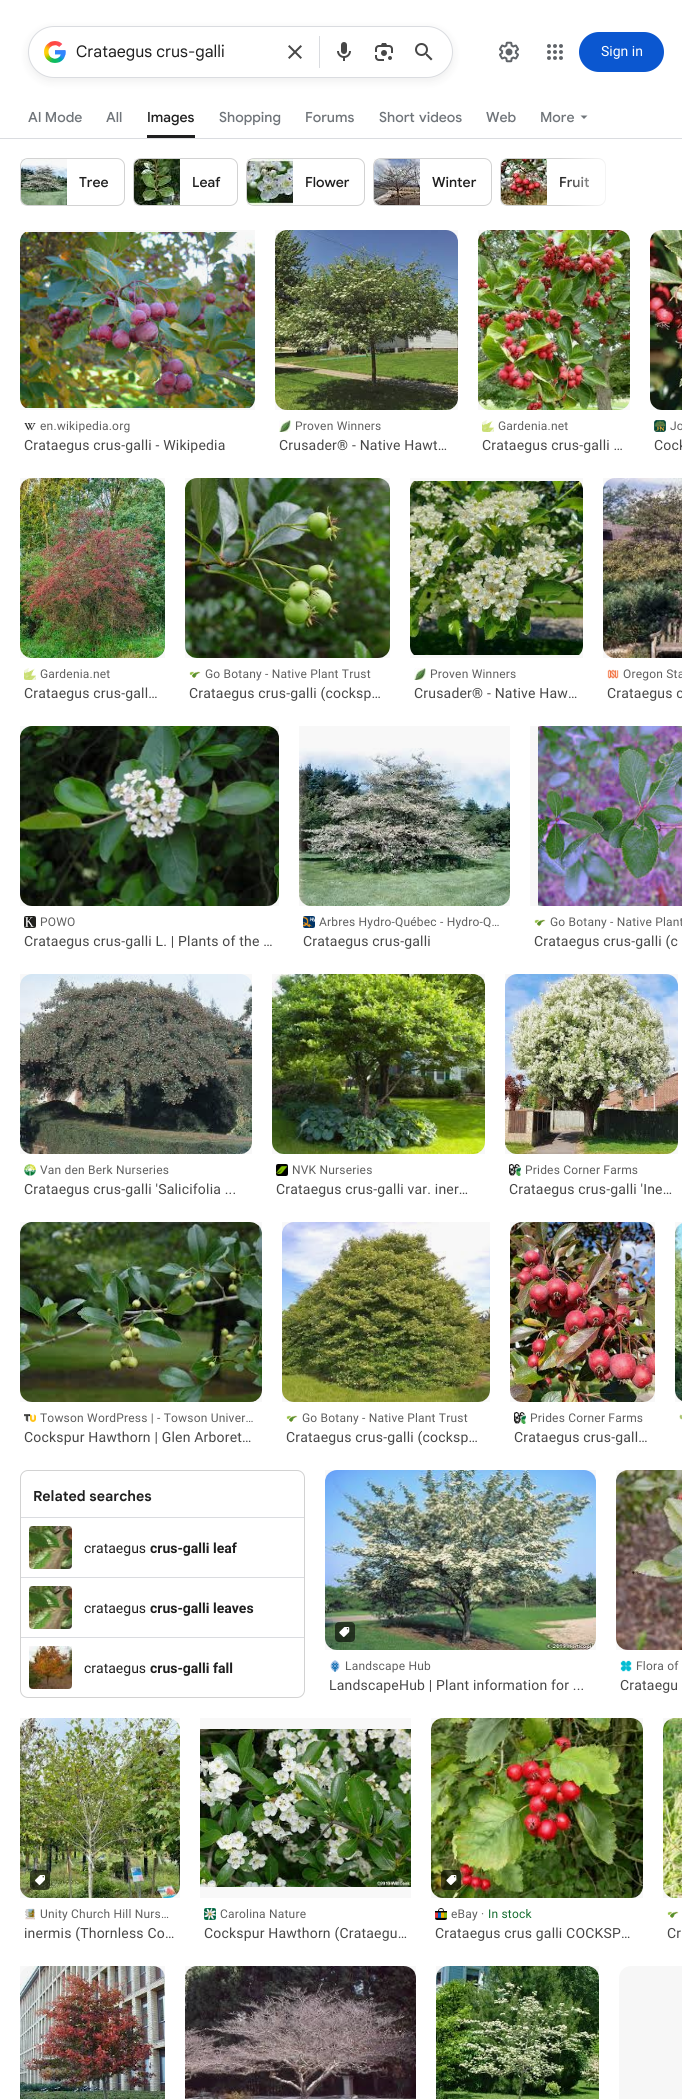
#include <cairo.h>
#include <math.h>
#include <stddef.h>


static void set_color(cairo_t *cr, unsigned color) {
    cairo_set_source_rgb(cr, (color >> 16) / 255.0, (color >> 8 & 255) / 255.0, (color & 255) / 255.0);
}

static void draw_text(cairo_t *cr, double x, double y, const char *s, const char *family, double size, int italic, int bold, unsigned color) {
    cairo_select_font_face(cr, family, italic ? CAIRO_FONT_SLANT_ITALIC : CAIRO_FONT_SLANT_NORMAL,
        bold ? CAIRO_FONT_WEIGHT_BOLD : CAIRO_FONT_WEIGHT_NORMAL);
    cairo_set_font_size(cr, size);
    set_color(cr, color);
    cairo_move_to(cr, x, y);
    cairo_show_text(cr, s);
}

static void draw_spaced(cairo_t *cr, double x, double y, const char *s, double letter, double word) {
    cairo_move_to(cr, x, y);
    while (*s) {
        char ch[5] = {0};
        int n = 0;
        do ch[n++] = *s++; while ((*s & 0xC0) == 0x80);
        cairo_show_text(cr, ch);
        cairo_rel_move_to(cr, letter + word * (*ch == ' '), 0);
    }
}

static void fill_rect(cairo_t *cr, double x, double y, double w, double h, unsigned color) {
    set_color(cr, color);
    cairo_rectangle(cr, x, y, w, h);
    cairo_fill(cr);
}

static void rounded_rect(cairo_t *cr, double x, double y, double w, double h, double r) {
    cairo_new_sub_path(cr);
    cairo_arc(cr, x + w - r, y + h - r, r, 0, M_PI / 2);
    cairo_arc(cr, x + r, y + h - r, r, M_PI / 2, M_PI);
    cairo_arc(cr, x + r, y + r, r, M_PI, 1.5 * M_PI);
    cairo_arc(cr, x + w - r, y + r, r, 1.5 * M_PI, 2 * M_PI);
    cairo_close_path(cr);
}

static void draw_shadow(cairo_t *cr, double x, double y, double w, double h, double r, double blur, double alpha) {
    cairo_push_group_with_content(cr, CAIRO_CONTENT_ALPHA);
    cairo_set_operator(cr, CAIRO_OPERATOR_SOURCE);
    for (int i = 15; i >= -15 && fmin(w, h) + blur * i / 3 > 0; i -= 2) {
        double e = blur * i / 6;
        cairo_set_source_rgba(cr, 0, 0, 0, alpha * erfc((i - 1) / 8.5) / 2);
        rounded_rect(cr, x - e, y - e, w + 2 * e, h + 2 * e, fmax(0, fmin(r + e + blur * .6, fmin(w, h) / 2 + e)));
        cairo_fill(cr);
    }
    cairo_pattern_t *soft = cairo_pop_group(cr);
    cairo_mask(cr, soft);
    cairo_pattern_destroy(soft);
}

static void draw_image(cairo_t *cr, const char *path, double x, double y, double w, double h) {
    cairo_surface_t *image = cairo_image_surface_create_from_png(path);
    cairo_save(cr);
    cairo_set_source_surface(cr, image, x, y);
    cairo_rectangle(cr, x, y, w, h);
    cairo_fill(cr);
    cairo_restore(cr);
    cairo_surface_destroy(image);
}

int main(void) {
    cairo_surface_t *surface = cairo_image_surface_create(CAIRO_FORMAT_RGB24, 682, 2099);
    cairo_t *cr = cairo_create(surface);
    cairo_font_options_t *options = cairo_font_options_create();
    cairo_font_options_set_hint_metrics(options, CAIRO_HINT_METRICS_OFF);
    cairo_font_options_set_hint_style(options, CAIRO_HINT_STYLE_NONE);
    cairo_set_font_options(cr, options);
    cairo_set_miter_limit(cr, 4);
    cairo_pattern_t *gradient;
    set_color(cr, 0xFFFFFF);
    cairo_paint(cr);
    set_color(cr, 0x1F1F1F);
    draw_shadow(cr, 28, 29, 425, 52, 26, 5, 0.08);
    set_color(cr, 0xFFFFFF);
    rounded_rect(cr, 28.5, 26.5, 424, 51, 25.5);
    cairo_fill_preserve(cr);
    set_color(cr, 0xDADCE0);
    cairo_set_line_width(cr, 1);
    cairo_stroke(cr);
    draw_image(cr, "assets/img1.png", 44, 41, 22, 22);
    draw_text(cr, 76, 57, "Crataegus crus-galli", "Google Sans", 16, 0, 0, 0x1F1F1F);
    draw_image(cr, "assets/img2.png", 288, 45, 14, 14);
    fill_rect(cr, 319, 36, 1, 32, 0xDADCE0);
    draw_image(cr, "assets/img3.png", 337, 42, 14, 19);
    draw_image(cr, "assets/img4.png", 375, 43, 18, 18);
    draw_image(cr, "assets/img5.png", 415, 43, 18, 18);
    draw_image(cr, "assets/img6.png", 499, 41, 20, 22);
    draw_image(cr, "assets/img7.png", 547, 44, 16, 16);
    set_color(cr, 0x0B57D0);
    rounded_rect(cr, 579, 32, 85, 40, 20);
    cairo_fill(cr);
    draw_text(cr, 601, 56, "Sign in", "Roboto", 14, 0, 0, 0xFFFFFF);
    draw_text(cr, 28, 122, "AI Mode", "Google Sans Medium", 14, 0, 0, 0x70757A);
    draw_text(cr, 106, 122, "All", "Google Sans Medium", 14, 0, 0, 0x70757A);
    fill_rect(cr, 147, 135, 48, 3, 0x1F1F1F);
    draw_text(cr, 147, 122, "Images", "Google Sans Medium", 14, 0, 0, 0x1F1F1F);
    draw_text(cr, 219, 122, "Shopping", "Google Sans Medium", 14, 0, 0, 0x70757A);
    draw_text(cr, 305, 122, "Forums", "Google Sans Medium", 14, 0, 0, 0x70757A);
    draw_spaced(cr, 379, 122, "Short videos", 0, 1);
    draw_text(cr, 486, 122, "Web", "Google Sans Medium", 14, 0, 0, 0x70757A);
    draw_text(cr, 540, 122, "More", "Google Sans Medium", 14, 0, 0, 0x70757A);
    cairo_new_path(cr);
    cairo_move_to(cr, 580.5, 115.5);
    cairo_line_to(cr, 584, 119);
    cairo_line_to(cr, 587.5, 115.5);
    cairo_close_path(cr);
    cairo_fill(cr);
    fill_rect(cr, 0, 138, 682, 1, 0xDADCE0);
    rounded_rect(cr, 500.5, 158.5, 105, 47, 7.5);
    set_color(cr, 0xD2D2D2);
    cairo_stroke(cr);
    draw_text(cr, 559, 187, "Fruit", "Google Sans Medium", 14, 0, 0, 0x1F1F1F);
    gradient = cairo_pattern_create_linear(560, 183, 660, 183);
    cairo_pattern_add_color_stop_rgba(gradient, 0, 1, 1, 1, 0);
    cairo_pattern_add_color_stop_rgba(gradient, 0.6, 1, 1, 1, 1);
    cairo_pattern_add_color_stop_rgba(gradient, 1, 1, 1, 1, 1);
    cairo_set_source(cr, gradient);
    cairo_pattern_destroy(gradient);
    cairo_rectangle(cr, 561, 158, 45, 48);
    cairo_fill(cr);
    rounded_rect(cr, 20.5, 158.5, 104, 47, 7.5);
    set_color(cr, 0xD2D2D2);
    cairo_stroke(cr);
    draw_image(cr, "assets/img8.png", 21, 159, 46, 46);
    cairo_set_source_rgba(cr, 0, 0, 0, 0.03);
    cairo_rectangle(cr, 21, 159, 46, 46);
    cairo_fill(cr);
    draw_text(cr, 79, 187, "Tree", "Google Sans Medium", 14, 0, 0, 0x1F1F1F);
    rounded_rect(cr, 133.5, 158.5, 104, 47, 7.5);
    set_color(cr, 0xD2D2D2);
    cairo_stroke(cr);
    draw_image(cr, "assets/img9.png", 134, 159, 46, 46);
    cairo_set_source_rgba(cr, 0, 0, 0, 0.03);
    cairo_rectangle(cr, 134, 159, 46, 46);
    cairo_fill(cr);
    draw_text(cr, 192, 187, "Leaf", "Google Sans Medium", 14, 0, 0, 0x1F1F1F);
    rounded_rect(cr, 246.5, 158.5, 118, 47, 7.5);
    set_color(cr, 0xD2D2D2);
    cairo_stroke(cr);
    draw_image(cr, "assets/img10.png", 247, 159, 46, 46);
    cairo_set_source_rgba(cr, 0, 0, 0, 0.03);
    cairo_rectangle(cr, 247, 159, 46, 46);
    cairo_fill(cr);
    draw_text(cr, 305, 187, "Flower", "Google Sans Medium", 14, 0, 0, 0x1F1F1F);
    rounded_rect(cr, 373.5, 158.5, 118, 47, 7.5);
    set_color(cr, 0xD2D2D2);
    cairo_stroke(cr);
    draw_image(cr, "assets/img11.png", 374, 159, 46, 46);
    cairo_set_source_rgba(cr, 0, 0, 0, 0.03);
    cairo_rectangle(cr, 374, 159, 46, 46);
    cairo_fill(cr);
    draw_text(cr, 432, 187, "Winter", "Google Sans Medium", 14, 0, 0, 0x1F1F1F);
    draw_image(cr, "assets/img12.png", 501, 159, 46, 46);
    cairo_set_source_rgba(cr, 0, 0, 0, 0.03);
    cairo_rectangle(cr, 501, 159, 46, 46);
    cairo_fill(cr);
    draw_image(cr, "assets/img13.png", 20, 232, 235, 176);
    cairo_rectangle(cr, 20, 230, 235, 180);
    cairo_fill(cr);
    draw_image(cr, "assets/img14.png", 24, 423, 12, 8);
    cairo_select_font_face(cr, "Roboto", CAIRO_FONT_SLANT_NORMAL, CAIRO_FONT_WEIGHT_NORMAL);
    cairo_set_font_size(cr, 12);
    set_color(cr, 0x5E5E5E);
    draw_spaced(cr, 40, 430, "en.wikipedia.org", 0.2, 0);
    cairo_set_font_size(cr, 14);
    set_color(cr, 0x474747);
    draw_spaced(cr, 24, 450, "Crataegus crus-galli - Wikipedia", 0.2, 0);
    draw_image(cr, "assets/img15.png", 275, 230, 183, 180);
    cairo_set_source_rgba(cr, 0, 0, 0, 0.03);
    cairo_rectangle(cr, 275, 230, 183, 180);
    cairo_fill(cr);
    draw_image(cr, "assets/img16.png", 279, 420, 12, 12);
    cairo_set_font_size(cr, 12);
    set_color(cr, 0x5E5E5E);
    draw_spaced(cr, 295, 430, "Proven Winners", 0.2, 0);
    cairo_set_font_size(cr, 14);
    set_color(cr, 0x474747);
    draw_spaced(cr, 279, 450, "Crusader® - Native Hawt…", 0.2, 0);
    draw_image(cr, "assets/img17.png", 478, 230, 152, 180);
    cairo_set_source_rgba(cr, 0, 0, 0, 0.03);
    cairo_rectangle(cr, 478, 230, 152, 180);
    cairo_fill(cr);
    draw_image(cr, "assets/img18.png", 482, 420, 12, 12);
    cairo_set_font_size(cr, 12);
    set_color(cr, 0x5E5E5E);
    draw_spaced(cr, 498, 430, "Gardenia.net", 0.2, 0);
    cairo_set_font_size(cr, 14);
    set_color(cr, 0x474747);
    draw_spaced(cr, 482, 450, "Crataegus crus-galli …", 0.2, 0);
    draw_image(cr, "assets/img19.png", 650, 230, 32, 180);
    cairo_set_source_rgba(cr, 0, 0, 0, 0.03);
    cairo_rectangle(cr, 650, 230, 32, 180);
    cairo_fill(cr);
    draw_image(cr, "assets/img20.png", 654, 420, 12, 12);
    cairo_set_font_size(cr, 12);
    set_color(cr, 0x5E5E5E);
    draw_spaced(cr, 670, 430, "Jo", 0.2, 0);
    cairo_set_font_size(cr, 14);
    set_color(cr, 0x474747);
    draw_spaced(cr, 654, 450, "Cock", 0.2, 0);
    draw_image(cr, "assets/img21.png", 20, 478, 145, 180);
    cairo_set_source_rgba(cr, 0, 0, 0, 0.03);
    cairo_rectangle(cr, 20, 478, 145, 180);
    cairo_fill(cr);
    draw_image(cr, "assets/img18.png", 24, 668, 12, 12);
    cairo_set_font_size(cr, 12);
    set_color(cr, 0x5E5E5E);
    draw_spaced(cr, 40, 678, "Gardenia.net", 0.2, 0);
    cairo_set_font_size(cr, 14);
    set_color(cr, 0x474747);
    draw_spaced(cr, 24, 698, "Crataegus crus-gall…", 0.2, 0);
    draw_image(cr, "assets/img22.png", 185, 478, 205, 180);
    cairo_set_source_rgba(cr, 0, 0, 0, 0.03);
    cairo_rectangle(cr, 185, 478, 205, 180);
    cairo_fill(cr);
    draw_image(cr, "assets/img23.png", 189, 671, 12, 7);
    cairo_set_font_size(cr, 12);
    set_color(cr, 0x5E5E5E);
    draw_spaced(cr, 205, 678, "Go Botany - Native Plant Trust", 0.2, 0);
    cairo_set_font_size(cr, 14);
    set_color(cr, 0x474747);
    draw_spaced(cr, 189, 698, "Crataegus crus-galli (cocksp…", 0.2, 0);
    draw_image(cr, "assets/img24.png", 410, 481, 173, 174);
    cairo_set_source_rgba(cr, 0, 0, 0, 0.03);
    cairo_rectangle(cr, 410, 478, 173, 180);
    cairo_fill(cr);
    draw_image(cr, "assets/img16.png", 414, 668, 12, 12);
    cairo_set_font_size(cr, 12);
    set_color(cr, 0x5E5E5E);
    draw_spaced(cr, 430, 678, "Proven Winners", 0.2, 0);
    cairo_set_font_size(cr, 14);
    set_color(cr, 0x474747);
    draw_spaced(cr, 414, 698, "Crusader® - Native Haw…", 0.2, 0);
    draw_image(cr, "assets/img25.png", 603, 478, 79, 180);
    cairo_set_source_rgba(cr, 0, 0, 0, 0.03);
    cairo_rectangle(cr, 603, 478, 79, 180);
    cairo_fill(cr);
    draw_image(cr, "assets/img26.png", 607, 669, 12, 10);
    cairo_set_font_size(cr, 12);
    set_color(cr, 0x5E5E5E);
    draw_spaced(cr, 623, 678, "Oregon Sta", 0.2, 0);
    cairo_set_font_size(cr, 14);
    set_color(cr, 0x474747);
    draw_spaced(cr, 607, 698, "Crataegus c", 0.2, 0);
    draw_image(cr, "assets/img27.png", 20, 726, 259, 180);
    cairo_set_source_rgba(cr, 0, 0, 0, 0.03);
    cairo_rectangle(cr, 20, 726, 259, 180);
    cairo_fill(cr);
    draw_image(cr, "assets/img28.png", 24, 916, 12, 12);
    cairo_set_font_size(cr, 12);
    set_color(cr, 0x5E5E5E);
    draw_spaced(cr, 40, 926, "POWO", 0.2, 0);
    cairo_set_font_size(cr, 14);
    set_color(cr, 0x474747);
    draw_spaced(cr, 24, 946, "Crataegus crus-galli L. | Plants of the …", 0.2, 0);
    draw_image(cr, "assets/img29.png", 299, 748, 211, 158);
    cairo_set_source_rgba(cr, 0, 0, 0, 0.03);
    cairo_rectangle(cr, 299, 726, 211, 180);
    cairo_fill(cr);
    draw_image(cr, "assets/img30.png", 303, 916, 12, 12);
    cairo_set_font_size(cr, 12);
    set_color(cr, 0x5E5E5E);
    draw_spaced(cr, 319, 926, "Arbres Hydro-Québec - Hydro-Q…", 0.2, 0);
    cairo_set_font_size(cr, 14);
    set_color(cr, 0x474747);
    draw_spaced(cr, 303, 946, "Crataegus crus-galli", 0.2, 0);
    draw_image(cr, "assets/img31.png", 538, 726, 144, 180);
    cairo_set_source_rgba(cr, 0, 0, 0, 0.03);
    cairo_rectangle(cr, 530, 726, 152, 180);
    cairo_fill(cr);
    draw_image(cr, "assets/img23.png", 534, 919, 12, 7);
    cairo_set_font_size(cr, 12);
    set_color(cr, 0x5E5E5E);
    draw_spaced(cr, 550, 926, "Go Botany - Native Plant", 0.2, 0);
    cairo_set_font_size(cr, 14);
    set_color(cr, 0x474747);
    draw_spaced(cr, 534, 946, "Crataegus crus-galli (c", 0.2, 0);
    draw_image(cr, "assets/img32.png", 20, 974, 232, 180);
    cairo_set_source_rgba(cr, 0, 0, 0, 0.03);
    cairo_rectangle(cr, 20, 974, 232, 180);
    cairo_fill(cr);
    draw_image(cr, "assets/img33.png", 24, 1164, 12, 12);
    cairo_set_font_size(cr, 12);
    set_color(cr, 0x5E5E5E);
    draw_spaced(cr, 40, 1174, "Van den Berk Nurseries", 0.2, 0);
    cairo_set_font_size(cr, 14);
    set_color(cr, 0x474747);
    draw_spaced(cr, 24, 1194, "Crataegus crus-galli 'Salicifolia ...", 0.2, 0);
    draw_image(cr, "assets/img34.png", 272, 974, 213, 180);
    cairo_set_source_rgba(cr, 0, 0, 0, 0.03);
    cairo_rectangle(cr, 272, 974, 213, 180);
    cairo_fill(cr);
    draw_image(cr, "assets/img35.png", 276, 1164, 12, 12);
    cairo_set_font_size(cr, 12);
    set_color(cr, 0x5E5E5E);
    draw_spaced(cr, 292, 1174, "NVK Nurseries", 0.2, 0);
    cairo_set_font_size(cr, 14);
    set_color(cr, 0x474747);
    draw_spaced(cr, 276, 1194, "Crataegus crus-galli var. iner…", 0.2, 0);
    draw_image(cr, "assets/img36.png", 505, 974, 173, 180);
    cairo_set_source_rgba(cr, 0, 0, 0, 0.03);
    cairo_rectangle(cr, 505, 974, 173, 180);
    cairo_fill(cr);
    draw_image(cr, "assets/img37.png", 509, 1164, 12, 12);
    cairo_set_font_size(cr, 12);
    set_color(cr, 0x5E5E5E);
    draw_spaced(cr, 525, 1174, "Prides Corner Farms", 0.2, 0);
    cairo_set_font_size(cr, 14);
    set_color(cr, 0x474747);
    draw_spaced(cr, 509, 1194, "Crataegus crus-galli 'Ine…", 0.2, 0);
    draw_image(cr, "assets/img38.png", 675, 1223, 7, 178);
    cairo_set_source_rgba(cr, 0, 0, 0, 0.03);
    cairo_rectangle(cr, 675, 1222, 7, 180);
    cairo_fill(cr);
    draw_image(cr, "assets/img39.png", 679, 1414, 3, 6);
    draw_image(cr, "assets/img40.png", 20, 1222, 242, 180);
    cairo_rectangle(cr, 20, 1222, 242, 180);
    cairo_fill(cr);
    draw_image(cr, "assets/img41.png", 24, 1414, 12, 8);
    cairo_set_font_size(cr, 12);
    set_color(cr, 0x5E5E5E);
    draw_spaced(cr, 40, 1422, "Towson WordPress | - Towson Univer…", 0.2, 0);
    cairo_set_font_size(cr, 14);
    set_color(cr, 0x474747);
    draw_spaced(cr, 24, 1442, "Cockspur Hawthorn | Glen Arboret…", 0.2, 0);
    draw_image(cr, "assets/img42.png", 282, 1222, 208, 180);
    cairo_set_source_rgba(cr, 0, 0, 0, 0.03);
    cairo_rectangle(cr, 282, 1222, 208, 180);
    cairo_fill(cr);
    draw_image(cr, "assets/img23.png", 286, 1415, 12, 7);
    cairo_set_font_size(cr, 12);
    set_color(cr, 0x5E5E5E);
    draw_spaced(cr, 302, 1422, "Go Botany - Native Plant Trust", 0.2, 0);
    cairo_set_font_size(cr, 14);
    set_color(cr, 0x474747);
    draw_spaced(cr, 286, 1442, "Crataegus crus-galli (cocksp…", 0.2, 0);
    draw_image(cr, "assets/img43.png", 510, 1222, 145, 180);
    cairo_set_source_rgba(cr, 0, 0, 0, 0.03);
    cairo_rectangle(cr, 510, 1222, 145, 180);
    cairo_fill(cr);
    draw_image(cr, "assets/img37.png", 514, 1412, 12, 12);
    cairo_set_font_size(cr, 12);
    set_color(cr, 0x5E5E5E);
    draw_spaced(cr, 530, 1422, "Prides Corner Farms", 0.2, 0);
    cairo_set_font_size(cr, 14);
    set_color(cr, 0x474747);
    draw_spaced(cr, 514, 1442, "Crataegus crus-gall…", 0.2, 0);
    rounded_rect(cr, 20.5, 1470.5, 284, 227, 7.5);
    set_color(cr, 0xD2D2D2);
    cairo_stroke(cr);
    draw_text(cr, 33, 1501, "Related searches", "Google Sans", 14, 0, 1, 0x1F1F1F);
    fill_rect(cr, 21, 1517, 283, 1, 0xDADCE0);
    draw_image(cr, "assets/img44.png", 29, 1526, 43, 43);
    cairo_set_source_rgba(cr, 0, 0, 0, 0.03);
    cairo_rectangle(cr, 29, 1526, 43, 43);
    cairo_fill(cr);
    draw_text(cr, 84, 1553, "crataegus", "Roboto", 14, 0, 0, 0x1F1F1F);
    draw_text(cr, 150, 1553, "crus-galli leaf", "Roboto", 14, 0, 1, 0x1F1F1F);
    fill_rect(cr, 21, 1577, 283, 1, 0xDADCE0);
    draw_image(cr, "assets/img44.png", 29, 1586, 43, 43);
    cairo_set_source_rgba(cr, 0, 0, 0, 0.03);
    cairo_rectangle(cr, 29, 1586, 43, 43);
    cairo_fill(cr);
    draw_text(cr, 84, 1613, "crataegus", "Roboto", 14, 0, 0, 0x1F1F1F);
    draw_text(cr, 150, 1613, "crus-galli leaves", "Roboto", 14, 0, 1, 0x1F1F1F);
    fill_rect(cr, 21, 1637, 283, 1, 0xDADCE0);
    draw_image(cr, "assets/img45.png", 29, 1646, 43, 43);
    cairo_set_source_rgba(cr, 0, 0, 0, 0.03);
    cairo_rectangle(cr, 29, 1646, 43, 43);
    cairo_fill(cr);
    draw_text(cr, 84, 1673, "crataegus", "Roboto", 14, 0, 0, 0x1F1F1F);
    draw_text(cr, 150, 1673, "crus-galli fall", "Roboto", 14, 0, 1, 0x1F1F1F);
    draw_image(cr, "assets/img46.png", 325, 1470, 271, 180);
    cairo_set_source_rgba(cr, 0, 0, 0, 0.03);
    cairo_rectangle(cr, 325, 1470, 271, 180);
    cairo_fill(cr);
    cairo_set_source_rgba(cr, 0, 0, 0, 0.6);
    rounded_rect(cr, 335, 1622, 20, 20, 4);
    cairo_fill(cr);
    draw_image(cr, "assets/img47.png", 339, 1627, 11, 10);
    draw_image(cr, "assets/img48.png", 330, 1660, 10, 12);
    cairo_select_font_face(cr, "Roboto", CAIRO_FONT_SLANT_NORMAL, CAIRO_FONT_WEIGHT_NORMAL);
    cairo_set_font_size(cr, 12);
    set_color(cr, 0x5E5E5E);
    draw_spaced(cr, 345, 1670, "Landscape Hub", 0.2, 0);
    cairo_set_font_size(cr, 14);
    set_color(cr, 0x474747);
    draw_spaced(cr, 329, 1690, "LandscapeHub | Plant information for ...", 0.2, 0);
    draw_image(cr, "assets/img49.png", 616, 1470, 66, 180);
    cairo_set_source_rgba(cr, 0, 0, 0, 0.03);
    cairo_rectangle(cr, 616, 1470, 66, 180);
    cairo_fill(cr);
    draw_image(cr, "assets/img50.png", 620, 1660, 12, 12);
    cairo_set_font_size(cr, 12);
    set_color(cr, 0x5E5E5E);
    draw_spaced(cr, 636, 1670, "Flora of", 0.2, 0);
    cairo_set_font_size(cr, 14);
    set_color(cr, 0x474747);
    draw_spaced(cr, 620, 1690, "Crataegu", 0.2, 0);
    draw_image(cr, "assets/img51.png", 20, 1718, 160, 180);
    cairo_set_source_rgba(cr, 0, 0, 0, 0.03);
    cairo_rectangle(cr, 20, 1718, 160, 180);
    cairo_fill(cr);
    cairo_set_source_rgba(cr, 0, 0, 0, 0.6);
    rounded_rect(cr, 30, 1870, 20, 20, 4);
    cairo_fill(cr);
    draw_image(cr, "assets/img52.png", 35, 1875, 10, 10);
    draw_image(cr, "assets/img53.png", 25, 1908, 10, 12);
    cairo_set_font_size(cr, 12);
    set_color(cr, 0x5E5E5E);
    draw_spaced(cr, 40, 1918, "Unity Church Hill Nurs…", 0.2, 0);
    cairo_set_font_size(cr, 14);
    set_color(cr, 0x474747);
    draw_spaced(cr, 24, 1938, "inermis (Thornless Co…", 0.2, 0);
    draw_image(cr, "assets/img54.png", 200, 1729, 211, 158);
    cairo_set_source_rgba(cr, 0, 0, 0, 0.03);
    cairo_rectangle(cr, 200, 1718, 211, 180);
    cairo_fill(cr);
    draw_image(cr, "assets/img55.png", 204, 1908, 12, 12);
    cairo_set_font_size(cr, 12);
    set_color(cr, 0x5E5E5E);
    draw_spaced(cr, 220, 1918, "Carolina Nature", 0.2, 0);
    cairo_set_font_size(cr, 14);
    set_color(cr, 0x474747);
    draw_spaced(cr, 204, 1938, "Cockspur Hawthorn (Crataegu…", 0.2, 0);
    draw_image(cr, "assets/img56.png", 431, 1718, 212, 180);
    cairo_set_source_rgba(cr, 0, 0, 0, 0.03);
    cairo_rectangle(cr, 431, 1718, 212, 180);
    cairo_fill(cr);
    cairo_set_source_rgba(cr, 0, 0, 0, 0.6);
    rounded_rect(cr, 441, 1870, 20, 20, 4);
    cairo_fill(cr);
    draw_image(cr, "assets/img57.png", 446, 1875, 11, 10);
    draw_image(cr, "assets/img58.png", 435, 1908, 12, 12);
    cairo_set_font_size(cr, 12);
    set_color(cr, 0x5E5E5E);
    draw_spaced(cr, 451, 1918, "eBay ·", 0.2, 0);
    set_color(cr, 0x146C2E);
    draw_spaced(cr, 488, 1918, "In stock", 0.2, 0);
    cairo_set_font_size(cr, 14);
    set_color(cr, 0x474747);
    draw_spaced(cr, 435, 1938, "Crataegus crus galli COCKSP…", 0.2, 0);
    draw_image(cr, "assets/img59.png", 663, 1718, 19, 180);
    cairo_set_source_rgba(cr, 0, 0, 0, 0.03);
    cairo_rectangle(cr, 663, 1718, 19, 180);
    cairo_fill(cr);
    draw_image(cr, "assets/img23.png", 667, 1911, 12, 7);
    set_color(cr, 0x474747);
    draw_spaced(cr, 667, 1938, "Cr", 0.2, 0);
    draw_image(cr, "assets/img60.png", 20, 1966, 145, 133);
    cairo_set_source_rgba(cr, 0, 0, 0, 0.03);
    cairo_rectangle(cr, 20, 1966, 145, 133);
    cairo_fill(cr);
    draw_image(cr, "assets/img61.png", 185, 1966, 231, 133);
    cairo_rectangle(cr, 185, 1966, 231, 133);
    cairo_fill(cr);
    draw_image(cr, "assets/img62.png", 436, 1966, 163, 133);
    cairo_rectangle(cr, 436, 1966, 163, 133);
    cairo_fill(cr);
    set_color(cr, 0xF7F7F7);
    rounded_rect(cr, 619, 1966, 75, 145, 12);
    cairo_fill(cr);
    cairo_surface_write_to_png(surface, "output.png");
    cairo_font_options_destroy(options);
    cairo_destroy(cr);
    cairo_surface_destroy(surface);
    return 0;
}
